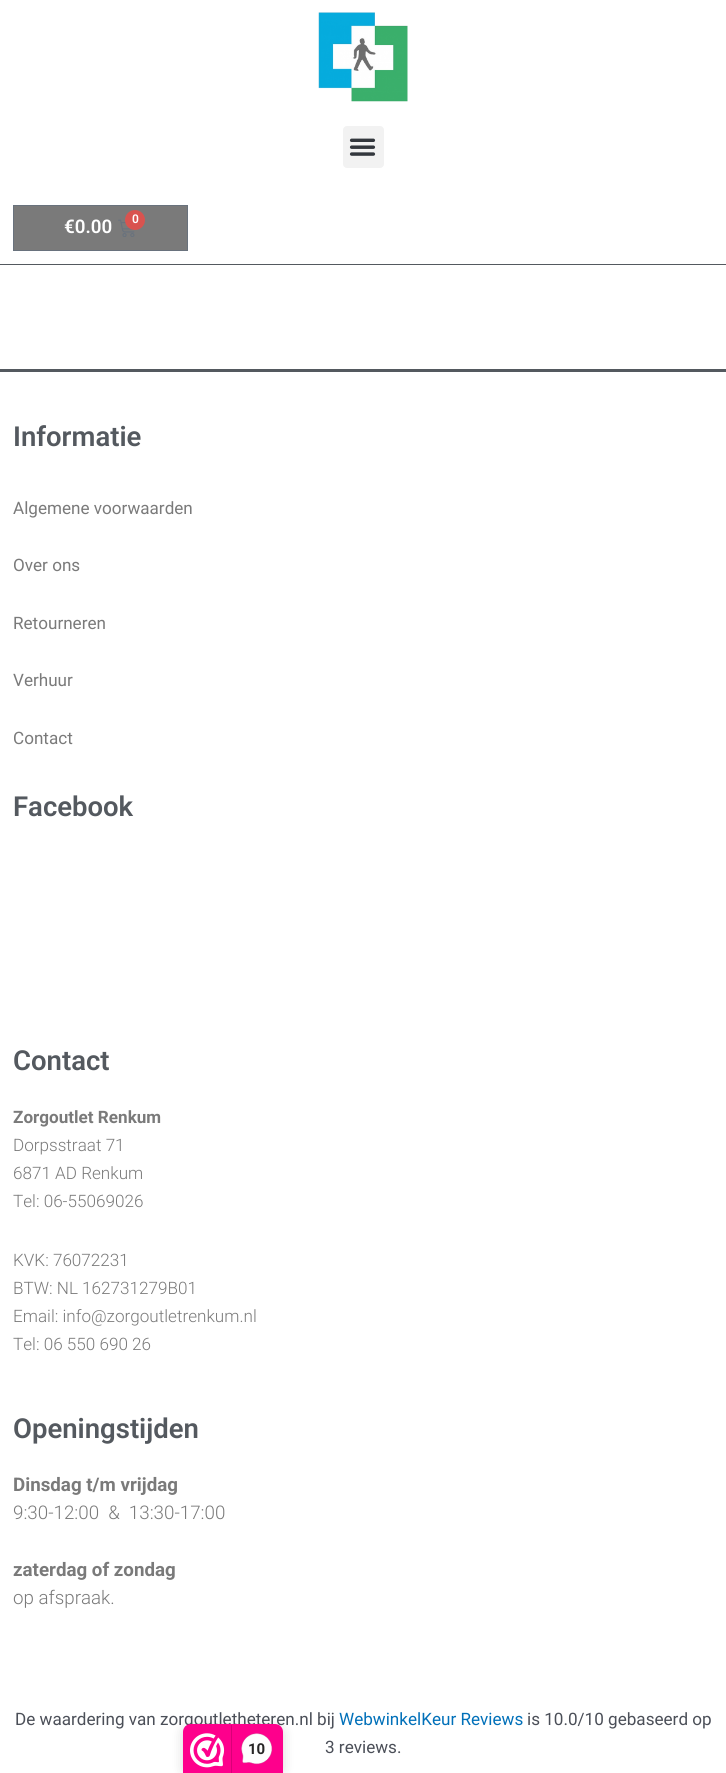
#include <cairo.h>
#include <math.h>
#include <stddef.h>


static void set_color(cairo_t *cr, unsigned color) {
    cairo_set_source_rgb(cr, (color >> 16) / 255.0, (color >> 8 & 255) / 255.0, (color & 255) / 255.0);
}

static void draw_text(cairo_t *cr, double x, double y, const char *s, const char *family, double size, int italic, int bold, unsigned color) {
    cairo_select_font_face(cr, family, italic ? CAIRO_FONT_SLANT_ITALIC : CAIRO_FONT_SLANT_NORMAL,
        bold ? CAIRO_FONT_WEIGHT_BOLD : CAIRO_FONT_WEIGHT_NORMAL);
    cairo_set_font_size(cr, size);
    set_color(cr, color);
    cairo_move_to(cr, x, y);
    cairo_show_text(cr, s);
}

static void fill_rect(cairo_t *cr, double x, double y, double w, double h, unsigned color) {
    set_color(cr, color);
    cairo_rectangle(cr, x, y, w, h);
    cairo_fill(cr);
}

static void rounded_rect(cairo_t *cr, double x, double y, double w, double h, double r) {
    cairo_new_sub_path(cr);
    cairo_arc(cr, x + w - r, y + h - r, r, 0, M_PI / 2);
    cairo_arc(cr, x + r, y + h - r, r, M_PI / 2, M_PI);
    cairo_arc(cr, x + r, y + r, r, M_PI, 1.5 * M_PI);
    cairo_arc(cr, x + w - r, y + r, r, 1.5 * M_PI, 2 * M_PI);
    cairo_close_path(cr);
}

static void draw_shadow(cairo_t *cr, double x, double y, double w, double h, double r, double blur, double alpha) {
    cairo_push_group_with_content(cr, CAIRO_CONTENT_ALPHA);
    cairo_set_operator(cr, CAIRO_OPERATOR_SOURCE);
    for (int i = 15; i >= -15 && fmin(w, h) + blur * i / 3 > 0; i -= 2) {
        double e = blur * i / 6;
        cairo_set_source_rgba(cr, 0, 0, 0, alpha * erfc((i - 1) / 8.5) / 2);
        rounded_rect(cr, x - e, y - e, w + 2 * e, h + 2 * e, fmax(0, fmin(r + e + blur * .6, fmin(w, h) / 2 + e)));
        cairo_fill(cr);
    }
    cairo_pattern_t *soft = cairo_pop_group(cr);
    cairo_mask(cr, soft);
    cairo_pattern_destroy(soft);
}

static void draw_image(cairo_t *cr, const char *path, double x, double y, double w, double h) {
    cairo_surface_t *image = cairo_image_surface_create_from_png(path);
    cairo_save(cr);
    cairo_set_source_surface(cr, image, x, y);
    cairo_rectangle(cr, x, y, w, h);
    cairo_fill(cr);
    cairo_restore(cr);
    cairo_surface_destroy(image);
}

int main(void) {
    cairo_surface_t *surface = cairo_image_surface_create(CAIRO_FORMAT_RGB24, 726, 1773);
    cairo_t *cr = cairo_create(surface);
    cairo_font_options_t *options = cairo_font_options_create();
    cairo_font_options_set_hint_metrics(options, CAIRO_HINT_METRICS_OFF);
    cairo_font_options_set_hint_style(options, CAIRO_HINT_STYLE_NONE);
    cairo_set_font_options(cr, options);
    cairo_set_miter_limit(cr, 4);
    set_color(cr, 0xFFFFFF);
    cairo_paint(cr);
    fill_rect(cr, 0, 264, 726, 1, 0x54595F);
    draw_image(cr, "assets/img1.png", 318, 12, 90, 90);
    set_color(cr, 0xF2F2F2);
    rounded_rect(cr, 343, 126, 41, 42, 4);
    cairo_fill(cr);
    draw_image(cr, "assets/img2.png", 349, 138, 27, 18);
    set_color(cr, 0x7A7A7A);
    cairo_rectangle(cr, 13.5, 205.5, 174, 45);
    cairo_fill_preserve(cr);
    set_color(cr, 0x69727D);
    cairo_set_line_width(cr, 1);
    cairo_stroke(cr);
    draw_text(cr, 64, 233, "€0.00", "Roboto SemiBold", 18.75, 0, 0, 0xFFFFFF);
    draw_image(cr, "assets/img3.png", 118, 219, 17, 18);
    set_color(cr, 0xD9534F);
    cairo_arc(cr, 135, 220, 10, 0, 2 * M_PI);
    cairo_fill(cr);
    draw_text(cr, 132, 223, "0", "Roboto SemiBold", 12, 0, 0, 0xFFFFFF);
    fill_rect(cr, 0, 369, 726, 3, 0x54595F);
    draw_text(cr, 13, 446, "Informatie", "Roboto SemiBold", 27.5, 0, 0, 0x54595F);
    draw_text(cr, 13, 514, "Algemene voorwaarden", "Roboto", 17.1, 0, 0, 0x7A7A7A);
    draw_text(cr, 13, 571, "Over ons", "Roboto", 17.1, 0, 0, 0x7A7A7A);
    draw_text(cr, 13, 629, "Retourneren", "Roboto", 17.1, 0, 0, 0x7A7A7A);
    draw_text(cr, 13, 686, "Verhuur", "Roboto", 17.1, 0, 0, 0x7A7A7A);
    draw_text(cr, 13, 744, "Contact", "Roboto", 17.1, 0, 0, 0x7A7A7A);
    draw_text(cr, 13, 816, "Facebook", "Roboto SemiBold", 27.5, 0, 0, 0x54595F);
    draw_text(cr, 13, 1070, "Contact", "Roboto SemiBold", 27.5, 0, 0, 0x54595F);
    draw_text(cr, 13, 1123, "Zorgoutlet Renkum", "Roboto", 17.1, 0, 1, 0x7A7A7A);
    draw_text(cr, 13, 1151, "Dorpsstraat 71", "Roboto Light", 17.1, 0, 0, 0x7A7A7A);
    draw_text(cr, 13, 1179, "6871 AD Renkum", "Roboto Light", 17.1, 0, 0, 0x7A7A7A);
    draw_text(cr, 13, 1207, "Tel: 06-55069026", "Roboto Light", 17.1, 0, 0, 0x7A7A7A);
    draw_text(cr, 13, 1266, "KVK: 76072231", "Roboto Light", 17.1, 0, 0, 0x7A7A7A);
    draw_text(cr, 13, 1294, "BTW: NL 162731279B01", "Roboto Light", 17.1, 0, 0, 0x7A7A7A);
    draw_text(cr, 13, 1322, "Email: info@zorgoutletrenkum.nl", "Roboto Light", 17.1, 0, 0, 0x7A7A7A);
    draw_text(cr, 13, 1350, "Tel: 06 550 690 26", "Roboto Light", 17.1, 0, 0, 0x7A7A7A);
    draw_text(cr, 13, 1438, "Openingstijden", "Roboto SemiBold", 27.5, 0, 0, 0x54595F);
    draw_text(cr, 13, 1491, "Dinsdag t/m vrijdag", "Roboto", 18.75, 0, 1, 0x7A7A7A);
    draw_text(cr, 13, 1519, "9:30-12:00  &  13:30-17:00", "Roboto Light", 18.75, 0, 0, 0x7A7A7A);
    draw_text(cr, 13, 1576, "zaterdag of zondag", "Roboto", 18.75, 0, 1, 0x7A7A7A);
    draw_text(cr, 13, 1604, "op afspraak.", "Roboto Light", 18.75, 0, 0, 0x7A7A7A);
    draw_text(cr, 15, 1725, "De waardering van zorgoutletheteren.nl bij", "Roboto", 17.1, 0, 0, 0x4B4F58);
    draw_text(cr, 339, 1725, "WebwinkelKeur Reviews", "Roboto", 17.1, 0, 0, 0x0170B9);
    draw_text(cr, 527, 1725, "is 10.0/10 gebaseerd op", "Roboto", 17.1, 0, 0, 0x4B4F58);
    draw_text(cr, 325, 1753, "3 reviews.", "Roboto", 17.1, 0, 0, 0x4B4F58);
    set_color(cr, 0x000000);
    draw_shadow(cr, 183, 1726, 100, 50, 8, 6, 0.15);
    set_color(cr, 0xFE008C);
    cairo_new_path(cr);
    cairo_move_to(cr, 191, 1724);
    cairo_line_to(cr, 275, 1724);
    cairo_curve_to(cr, 279.5, 1724, 283, 1727.5, 283, 1732);
    cairo_line_to(cr, 283, 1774);
    cairo_line_to(cr, 183, 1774);
    cairo_line_to(cr, 183, 1732);
    cairo_curve_to(cr, 183, 1727.5, 186.5, 1724, 191, 1724);
    cairo_close_path(cr);
    cairo_fill(cr);
    draw_image(cr, "assets/img4.png", 190, 1733, 35, 35);
    fill_rect(cr, 231, 1725, 1, 48, 0xD80077);
    draw_image(cr, "assets/img5.png", 241, 1733, 32, 32);
    draw_text(cr, 248, 1754, "10", "Roboto", 15, 0, 1, 0x272626);
    cairo_surface_write_to_png(surface, "output.png");
    cairo_font_options_destroy(options);
    cairo_destroy(cr);
    cairo_surface_destroy(surface);
    return 0;
}
